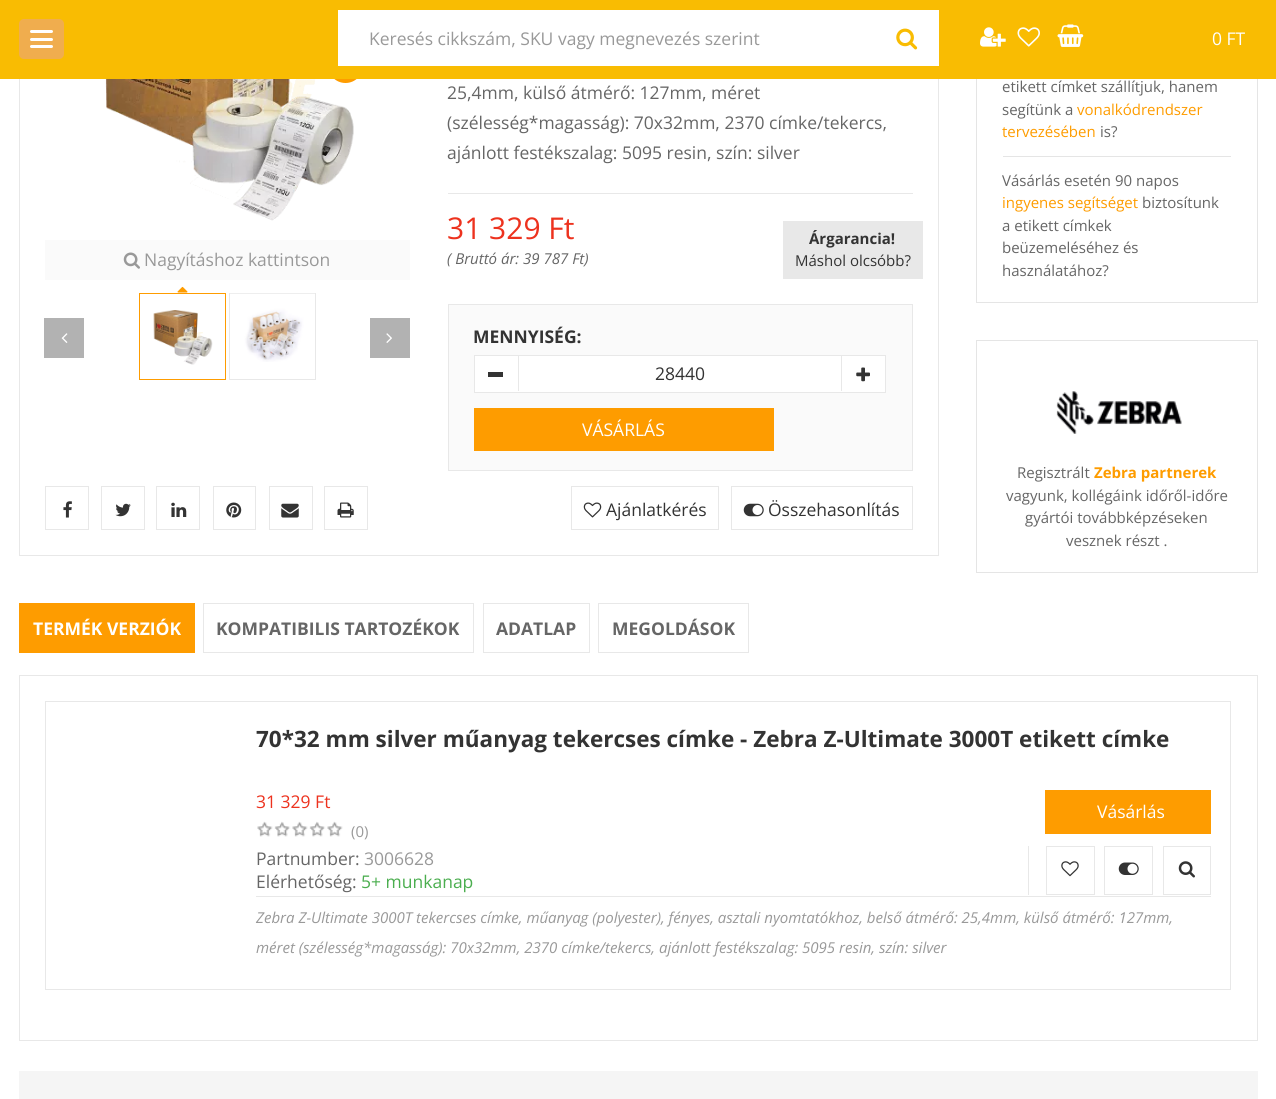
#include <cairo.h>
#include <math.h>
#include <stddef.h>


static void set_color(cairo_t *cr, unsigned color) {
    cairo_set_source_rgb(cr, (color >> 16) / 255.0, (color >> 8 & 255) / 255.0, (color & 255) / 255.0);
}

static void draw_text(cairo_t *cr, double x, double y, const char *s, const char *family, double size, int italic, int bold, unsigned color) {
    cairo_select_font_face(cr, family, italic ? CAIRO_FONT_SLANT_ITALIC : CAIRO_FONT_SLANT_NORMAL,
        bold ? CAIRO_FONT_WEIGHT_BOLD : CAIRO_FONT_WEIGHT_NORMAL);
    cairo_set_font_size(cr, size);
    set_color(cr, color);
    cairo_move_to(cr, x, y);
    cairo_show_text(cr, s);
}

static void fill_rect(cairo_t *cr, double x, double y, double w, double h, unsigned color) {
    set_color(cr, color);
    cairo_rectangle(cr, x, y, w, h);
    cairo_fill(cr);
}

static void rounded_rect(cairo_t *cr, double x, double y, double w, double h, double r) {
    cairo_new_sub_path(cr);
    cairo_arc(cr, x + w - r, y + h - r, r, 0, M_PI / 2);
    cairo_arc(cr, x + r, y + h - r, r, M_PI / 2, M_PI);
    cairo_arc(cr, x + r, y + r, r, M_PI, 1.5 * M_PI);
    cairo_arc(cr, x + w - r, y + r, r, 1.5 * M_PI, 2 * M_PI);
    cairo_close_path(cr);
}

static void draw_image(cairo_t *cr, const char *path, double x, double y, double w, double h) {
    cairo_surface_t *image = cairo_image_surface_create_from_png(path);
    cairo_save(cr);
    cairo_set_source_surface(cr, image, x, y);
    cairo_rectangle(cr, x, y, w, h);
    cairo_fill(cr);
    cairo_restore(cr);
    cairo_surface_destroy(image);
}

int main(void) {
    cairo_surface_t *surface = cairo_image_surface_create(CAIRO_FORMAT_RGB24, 1276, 1099);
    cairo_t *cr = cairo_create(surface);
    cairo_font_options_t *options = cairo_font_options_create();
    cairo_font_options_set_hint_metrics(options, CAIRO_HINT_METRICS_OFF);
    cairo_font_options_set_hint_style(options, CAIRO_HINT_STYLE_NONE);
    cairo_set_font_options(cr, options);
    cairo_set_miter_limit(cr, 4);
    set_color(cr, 0xFFFFFF);
    cairo_paint(cr);
    cairo_rectangle(cr, 19.5, -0.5, 919, 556);
    set_color(cr, 0xE8E8E8);
    cairo_set_line_width(cr, 1);
    cairo_stroke(cr);
    draw_image(cr, "assets/img5.png", 105, 79, 249, 142);
    set_color(cr, 0xFE9C00);
    cairo_arc(cr, 345.5, 65.5, 17.5, 0, 2 * M_PI);
    cairo_fill(cr);
    cairo_rectangle(cr, 976.5, -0.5, 281, 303);
    set_color(cr, 0xE5E5E5);
    cairo_stroke(cr);
    fill_rect(cr, 0, 0, 1276, 79, 0xF9BC02);
    set_color(cr, 0xF0AD4E);
    rounded_rect(cr, 19, 19, 45, 40, 5);
    cairo_fill(cr);
    set_color(cr, 0xFFFFFF);
    rounded_rect(cr, 30, 30, 23, 3, 1.5);
    cairo_fill(cr);
    rounded_rect(cr, 30, 38, 23, 3, 1.5);
    cairo_fill(cr);
    rounded_rect(cr, 30, 45, 23, 3, 1.5);
    cairo_fill(cr);
    fill_rect(cr, 338, 10, 601, 56, 0xFFFFFF);
    draw_text(cr, 369, 45, "Keresés cikkszám, SKU vagy megnevezés szerint", "Open Sans", 17.5, 0, 0, 0x999999);
    draw_image(cr, "assets/img1.png", 896, 28, 22, 22);
    draw_image(cr, "assets/img2.png", 980, 27, 26, 20);
    draw_image(cr, "assets/img3.png", 1017, 27, 23, 20);
    draw_image(cr, "assets/img4.png", 1057, 24, 27, 23);
    draw_text(cr, 1212, 45, "0 FT", "Open Sans", 17.5, 0, 0, 0xFFFFFF);
    fill_rect(cr, 45, 240, 365, 40, 0xFAFAFA);
    draw_image(cr, "assets/img6.png", 123, 252, 17, 17);
    draw_text(cr, 144, 266, "Nagyításhoz kattintson", "Open Sans", 17.5, 0, 0, 0x999999);
    cairo_rectangle(cr, 139.5, 293.5, 86, 86);
    set_color(cr, 0xFE9C00);
    cairo_stroke(cr);
    draw_image(cr, "assets/img7.png", 177, 286, 11, 7);
    draw_image(cr, "assets/img8.png", 153, 310, 60, 55);
    cairo_rectangle(cr, 229.5, 293.5, 86, 86);
    set_color(cr, 0xE8E8E8);
    cairo_stroke(cr);
    draw_image(cr, "assets/img9.png", 230, 293, 85, 69);
    fill_rect(cr, 44, 318, 40, 40, 0xB2B2B2);
    draw_image(cr, "assets/img10.png", 61, 333, 7, 10);
    fill_rect(cr, 370, 318, 40, 40, 0xB2B2B2);
    draw_image(cr, "assets/img11.png", 386, 333, 6, 10);
    draw_text(cr, 447, 99, "25,4mm, külső átmérő: 127mm, méret", "Open Sans", 17.5, 0, 0, 0x666666);
    draw_text(cr, 447, 129, "(szélesség*magasság): 70x32mm, 2370 címke/tekercs,", "Open Sans", 17.5, 0, 0, 0x666666);
    draw_text(cr, 447, 159, "ajánlott festékszalag: 5095 resin, szín: silver", "Open Sans", 17.5, 0, 0, 0x666666);
    fill_rect(cr, 448, 193, 465, 1, 0xE8E8E8);
    draw_text(cr, 447, 239, "31 329 Ft", "Open Sans", 30, 0, 0, 0xED321E);
    draw_text(cr, 447, 264, "( Bruttó ár: 39 787 Ft)", "Open Sans", 15, 1, 0, 0x666666);
    fill_rect(cr, 783, 221, 140, 58, 0xE8E8E8);
    draw_text(cr, 809, 244, "Árgarancia!", "Open Sans", 15, 0, 1, 0x333333);
    draw_text(cr, 795, 266, "Máshol olcsóbb?", "Open Sans", 15, 0, 0, 0x333333);
    set_color(cr, 0xFAFAFA);
    cairo_rectangle(cr, 448.5, 304.5, 464, 166);
    cairo_fill_preserve(cr);
    set_color(cr, 0xE8E8E8);
    cairo_stroke(cr);
    draw_text(cr, 473, 343, "MENNYISÉG:", "Open Sans", 17.5, 0, 1, 0x333333);
    set_color(cr, 0xFFFFFF);
    cairo_rectangle(cr, 474.5, 355.5, 411, 37);
    cairo_fill_preserve(cr);
    set_color(cr, 0xE8E8E8);
    cairo_stroke(cr);
    fill_rect(cr, 518, 356, 1, 35, 0xE8E8E8);
    fill_rect(cr, 488, 372, 15, 5, 0x333333);
    draw_text(cr, 655, 380, "28440", "Open Sans", 17.5, 0, 0, 0x333333);
    fill_rect(cr, 841, 356, 1, 35, 0xE8E8E8);
    draw_image(cr, "assets/img12.png", 856, 367, 14, 15);
    fill_rect(cr, 474, 408, 300, 43, 0xFE9C00);
    draw_text(cr, 582, 436, "VÁSÁRLÁS", "Open Sans", 17.5, 0, 0, 0xFFFFFF);
    cairo_rectangle(cr, 45.5, 486.5, 43, 43);
    set_color(cr, 0xE8E8E8);
    cairo_stroke(cr);
    draw_image(cr, "assets/img13.png", 63, 501, 9, 17);
    cairo_rectangle(cr, 101.5, 486.5, 43, 43);
    cairo_stroke(cr);
    draw_image(cr, "assets/img14.png", 115, 503, 16, 14);
    cairo_rectangle(cr, 156.5, 486.5, 43, 43);
    cairo_stroke(cr);
    draw_image(cr, "assets/img15.png", 171, 502, 16, 15);
    cairo_rectangle(cr, 213.5, 486.5, 42, 43);
    cairo_stroke(cr);
    draw_image(cr, "assets/img16.png", 226, 502, 16, 16);
    cairo_rectangle(cr, 269.5, 486.5, 43, 43);
    cairo_stroke(cr);
    draw_image(cr, "assets/img17.png", 281, 503, 18, 15);
    cairo_rectangle(cr, 324.5, 486.5, 43, 43);
    cairo_stroke(cr);
    draw_image(cr, "assets/img18.png", 337, 502, 17, 16);
    cairo_rectangle(cr, 571.5, 486.5, 147, 43);
    cairo_stroke(cr);
    draw_image(cr, "assets/img19.png", 583, 502, 19, 16);
    draw_text(cr, 606, 516, "Ajánlatkérés", "Open Sans", 17.5, 0, 0, 0x333333);
    cairo_rectangle(cr, 731.5, 486.5, 181, 43);
    set_color(cr, 0xE8E8E8);
    cairo_stroke(cr);
    draw_image(cr, "assets/img20.png", 743, 503, 21, 14);
    draw_text(cr, 768, 516, "Összehasonlítás", "Open Sans", 17.5, 0, 0, 0x333333);
    fill_rect(cr, 1003, 156, 228, 1, 0xE5E5E5);
    draw_text(cr, 1002, 92, "etikett címket szállítjuk, hanem", "Open Sans", 15, 0, 0, 0x666666);
    draw_text(cr, 1002, 115, "segítünk a", "Open Sans", 15, 0, 0, 0x666666);
    draw_text(cr, 1077, 115, "vonalkódrendszer", "Open Sans", 15, 0, 0, 0xFE9C00);
    draw_text(cr, 1002, 137, "tervezésében", "Open Sans", 15, 0, 0, 0xFE9C00);
    draw_text(cr, 1100, 137, "is?", "Open Sans", 15, 0, 0, 0x666666);
    draw_text(cr, 1002, 186, "Vásárlás esetén 90 napos", "Open Sans", 15, 0, 0, 0x666666);
    draw_text(cr, 1002, 208, "ingyenes segítséget", "Open Sans", 15, 0, 0, 0xFE9C00);
    draw_text(cr, 1142, 208, "biztosítunk", "Open Sans", 15, 0, 0, 0x666666);
    draw_text(cr, 1002, 231, "a etikett címkek", "Open Sans", 15, 0, 0, 0x666666);
    draw_text(cr, 1002, 253, "beüzemeléséhez és", "Open Sans", 15, 0, 0, 0x666666);
    draw_text(cr, 1002, 276, "használatához?", "Open Sans", 15, 0, 0, 0x666666);
    cairo_rectangle(cr, 976.5, 340.5, 281, 232);
    set_color(cr, 0xE5E5E5);
    cairo_stroke(cr);
    draw_image(cr, "assets/img21.png", 1056, 391, 126, 43);
    draw_text(cr, 1017, 478, "Regisztrált", "Open Sans", 15, 0, 0, 0x666666);
    draw_text(cr, 1094, 478, "Zebra partnerek", "Open Sans", 15, 0, 1, 0xFE9C00);
    draw_text(cr, 1006, 501, "vagyunk, kollégáink időről-időre", "Open Sans", 15, 0, 0, 0x666666);
    draw_text(cr, 1025, 523, "gyártói továbbképzéseken", "Open Sans", 15, 0, 0, 0x666666);
    draw_text(cr, 1066, 546, "vesznek részt .", "Open Sans", 15, 0, 0, 0x666666);
    fill_rect(cr, 19, 603, 176, 50, 0xFE9C00);
    draw_text(cr, 33, 635, "TERMÉK VERZIÓK", "Open Sans", 17.5, 0, 1, 0xFFFFFF);
    cairo_rectangle(cr, 203.5, 603.5, 270, 49);
    set_color(cr, 0xE8E8E8);
    cairo_stroke(cr);
    draw_text(cr, 216, 635, "KOMPATIBILIS TARTOZÉKOK", "Open Sans", 17.5, 0, 1, 0x666666);
    cairo_rectangle(cr, 483.5, 603.5, 106, 49);
    set_color(cr, 0xE8E8E8);
    cairo_stroke(cr);
    draw_text(cr, 496, 635, "ADATLAP", "Open Sans", 17.5, 0, 1, 0x666666);
    cairo_rectangle(cr, 598.5, 603.5, 150, 49);
    set_color(cr, 0xE8E8E8);
    cairo_stroke(cr);
    draw_text(cr, 612, 635, "MEGOLDÁSOK", "Open Sans", 17.5, 0, 1, 0x666666);
    cairo_rectangle(cr, 19.5, 675.5, 1238, 365);
    set_color(cr, 0xE8E8E8);
    cairo_stroke(cr);
    cairo_rectangle(cr, 45.5, 701.5, 1185, 288);
    cairo_stroke(cr);
    draw_text(cr, 256, 747, "70*32 mm silver műanyag tekercses címke - Zebra Z-Ultimate 3000T etikett címke", "Open Sans", 22.5, 0, 1, 0x333333);
    draw_text(cr, 256, 808, "31 329 Ft", "Open Sans", 17.5, 0, 0, 0xED321E);
    draw_image(cr, "assets/img22.png", 257, 821, 86, 16);
    draw_text(cr, 351, 837, "(0)", "Open Sans", 15, 0, 0, 0x999999);
    draw_text(cr, 256, 865, "Partnumber:", "Open Sans", 17.5, 0, 0, 0x666666);
    draw_text(cr, 364, 865, "3006628", "Open Sans", 17.5, 0, 0, 0x999999);
    draw_text(cr, 256, 888, "Elérhetőség:", "Open Sans", 17.5, 0, 0, 0x666666);
    draw_text(cr, 361, 888, "5+ munkanap", "Open Sans", 17.5, 0, 0, 0x4BAE4F);
    fill_rect(cr, 1045, 790, 166, 44, 0xFE9C00);
    draw_text(cr, 1097, 818, "Vásárlás", "Open Sans", 17.5, 0, 0, 0xFFFFFF);
    fill_rect(cr, 1028, 846, 1, 49, 0xE8E8E8);
    cairo_rectangle(cr, 1046.5, 846.5, 48, 48);
    cairo_stroke(cr);
    draw_image(cr, "assets/img23.png", 1061, 861, 18, 16);
    cairo_rectangle(cr, 1104.5, 846.5, 48, 48);
    cairo_stroke(cr);
    draw_image(cr, "assets/img24.png", 1118, 862, 21, 13);
    cairo_rectangle(cr, 1163.5, 846.5, 47, 48);
    cairo_stroke(cr);
    draw_image(cr, "assets/img25.png", 1178, 861, 17, 17);
    fill_rect(cr, 256, 896, 955, 1, 0xE8E8E8);
    draw_text(cr, 256, 923, "Zebra Z-Ultimate 3000T tekercses címke, műanyag (polyester), fényes, asztali nyomtatókhoz, belső átmérő: 25,4mm, külső átmérő: 127mm,", "Open Sans", 15, 1, 0, 0x999999);
    draw_text(cr, 256, 953, "méret (szélesség*magasság): 70x32mm, 2370 címke/tekercs, ajánlott festékszalag: 5095 resin, szín: silver", "Open Sans", 15, 1, 0, 0x999999);
    fill_rect(cr, 19, 1071, 1239, 28, 0xF5F5F5);
    cairo_surface_write_to_png(surface, "output.png");
    cairo_font_options_destroy(options);
    cairo_destroy(cr);
    cairo_surface_destroy(surface);
    return 0;
}
